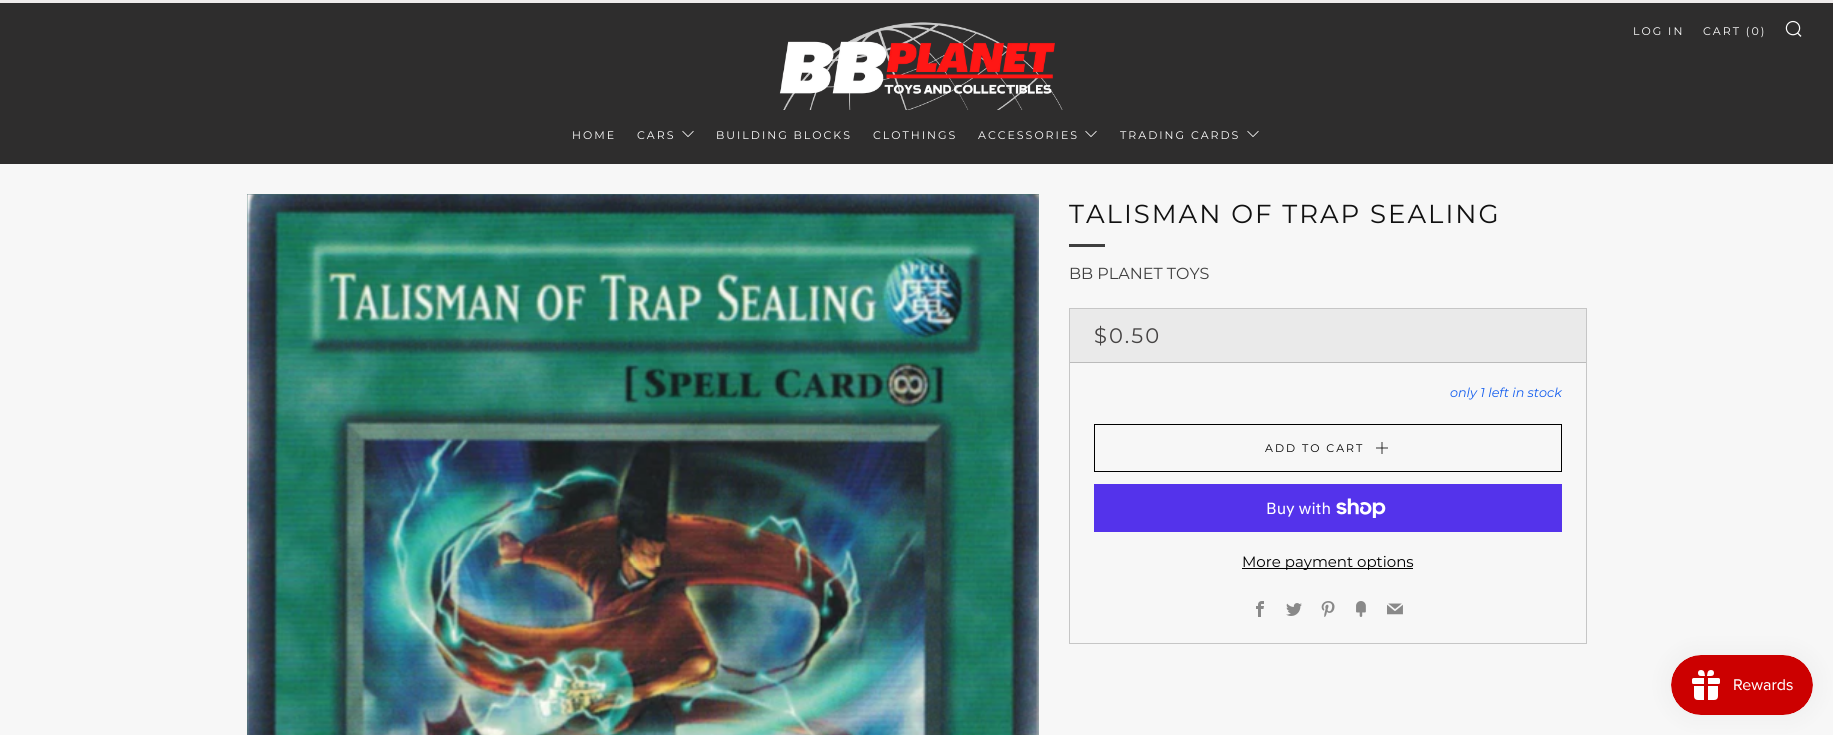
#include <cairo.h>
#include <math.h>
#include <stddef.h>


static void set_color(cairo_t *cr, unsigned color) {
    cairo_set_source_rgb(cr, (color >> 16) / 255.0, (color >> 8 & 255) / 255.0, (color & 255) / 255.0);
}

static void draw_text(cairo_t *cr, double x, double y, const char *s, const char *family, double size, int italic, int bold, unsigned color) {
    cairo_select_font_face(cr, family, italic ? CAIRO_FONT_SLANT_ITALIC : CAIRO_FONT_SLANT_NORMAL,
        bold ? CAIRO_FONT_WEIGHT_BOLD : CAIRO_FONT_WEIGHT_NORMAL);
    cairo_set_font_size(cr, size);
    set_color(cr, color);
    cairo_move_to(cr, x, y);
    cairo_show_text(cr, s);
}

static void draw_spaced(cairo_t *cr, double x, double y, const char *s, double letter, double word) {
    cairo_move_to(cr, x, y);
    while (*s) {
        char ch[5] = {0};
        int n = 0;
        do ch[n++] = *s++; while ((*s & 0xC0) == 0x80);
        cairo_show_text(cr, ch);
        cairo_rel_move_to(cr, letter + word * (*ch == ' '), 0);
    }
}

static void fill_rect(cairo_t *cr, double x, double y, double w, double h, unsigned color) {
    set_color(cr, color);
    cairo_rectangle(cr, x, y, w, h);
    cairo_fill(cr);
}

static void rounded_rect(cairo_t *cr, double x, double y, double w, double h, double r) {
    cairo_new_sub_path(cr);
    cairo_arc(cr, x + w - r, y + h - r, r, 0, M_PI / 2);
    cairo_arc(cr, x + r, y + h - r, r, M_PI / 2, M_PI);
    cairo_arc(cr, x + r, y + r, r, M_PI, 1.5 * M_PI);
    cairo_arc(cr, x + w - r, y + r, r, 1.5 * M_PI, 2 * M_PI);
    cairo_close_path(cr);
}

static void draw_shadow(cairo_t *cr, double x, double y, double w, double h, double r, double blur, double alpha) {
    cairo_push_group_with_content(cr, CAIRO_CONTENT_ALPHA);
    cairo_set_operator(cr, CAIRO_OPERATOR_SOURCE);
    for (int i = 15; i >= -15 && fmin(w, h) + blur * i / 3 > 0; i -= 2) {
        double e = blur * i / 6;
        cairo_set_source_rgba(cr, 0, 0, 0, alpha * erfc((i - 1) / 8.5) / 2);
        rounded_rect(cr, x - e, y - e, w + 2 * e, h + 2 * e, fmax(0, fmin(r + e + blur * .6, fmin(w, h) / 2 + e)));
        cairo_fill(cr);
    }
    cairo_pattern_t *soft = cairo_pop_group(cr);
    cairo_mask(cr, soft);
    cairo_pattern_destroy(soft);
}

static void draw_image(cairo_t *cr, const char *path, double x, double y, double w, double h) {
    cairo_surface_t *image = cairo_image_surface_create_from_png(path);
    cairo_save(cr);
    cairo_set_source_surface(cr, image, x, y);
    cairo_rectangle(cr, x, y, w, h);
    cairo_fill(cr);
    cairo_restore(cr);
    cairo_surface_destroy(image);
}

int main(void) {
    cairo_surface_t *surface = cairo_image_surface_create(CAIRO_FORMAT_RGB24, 1833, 735);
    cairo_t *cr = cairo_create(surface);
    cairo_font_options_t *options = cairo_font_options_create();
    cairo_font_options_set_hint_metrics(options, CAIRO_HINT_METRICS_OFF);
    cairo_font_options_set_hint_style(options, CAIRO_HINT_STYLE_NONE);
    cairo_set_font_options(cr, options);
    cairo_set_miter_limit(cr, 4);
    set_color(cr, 0xF7F7F7);
    cairo_paint(cr);
    fill_rect(cr, 0, 0, 1833, 3, 0xEEEBEB);
    fill_rect(cr, 0, 3, 1833, 161, 0x2E2D2D);
    draw_image(cr, "assets/img1.png", 779, 22, 284, 88);
    cairo_select_font_face(cr, "Montserrat", CAIRO_FONT_SLANT_NORMAL, CAIRO_FONT_WEIGHT_NORMAL);
    cairo_set_font_size(cr, 11);
    set_color(cr, 0xFFFFFF);
    draw_spaced(cr, 1633, 35, "LOG IN", 2, 0);
    draw_spaced(cr, 1703, 35, "CART (0)", 2, 0);
    draw_image(cr, "assets/img2.png", 1785, 20, 17, 17);
    draw_spaced(cr, 572, 139, "HOME", 2, 0);
    draw_spaced(cr, 637, 139, "CARS", 2, 0);
    draw_image(cr, "assets/img3.png", 682, 130, 12, 7);
    draw_spaced(cr, 716, 139, "BUILDING BLOCKS", 2, 0);
    draw_spaced(cr, 873, 139, "CLOTHINGS", 2, 0);
    draw_spaced(cr, 978, 139, "ACCESSORIES", 2, 0);
    draw_image(cr, "assets/img3.png", 1085, 130, 12, 7);
    draw_spaced(cr, 1120, 139, "TRADING CARDS", 2, 0);
    draw_image(cr, "assets/img3.png", 1247, 130, 12, 7);
    fill_rect(cr, 247, 194, 792, 541, 0x48746F);
    draw_image(cr, "assets/img4.png", 247, 194, 792, 541);
    cairo_set_font_size(cr, 26);
    set_color(cr, 0x111111);
    draw_spaced(cr, 1069, 223, "TALISMAN OF TRAP SEALING", 2, 0);
    fill_rect(cr, 1069, 244, 36, 3, 0x3F3F3F);
    draw_text(cr, 1069, 279, "BB PLANET TOYS", "Montserrat", 16, 0, 0, 0x3F3F3F);
    cairo_rectangle(cr, 1069.5, 308.5, 517, 335);
    set_color(cr, 0xC6C6C6);
    cairo_set_line_width(cr, 1);
    cairo_stroke(cr);
    fill_rect(cr, 1070, 309, 516, 53, 0xEAEAEA);
    fill_rect(cr, 1070, 362, 516, 1, 0xBBBBBB);
    cairo_set_font_size(cr, 21);
    set_color(cr, 0x454343);
    draw_spaced(cr, 1094, 343, "$0.50", 2, 0);
    draw_text(cr, 1450, 397, "only 1 left in stock", "Montserrat", 12.75, 1, 0, 0x135DEE);
    cairo_rectangle(cr, 1094.5, 424.5, 467, 47);
    set_color(cr, 0x000000);
    cairo_stroke(cr);
    cairo_select_font_face(cr, "Montserrat", CAIRO_FONT_SLANT_NORMAL, CAIRO_FONT_WEIGHT_NORMAL);
    cairo_set_font_size(cr, 11);
    draw_spaced(cr, 1265, 452, "ADD TO CART", 2, 0);
    draw_image(cr, "assets/img5.png", 1376, 442, 12, 12);
    fill_rect(cr, 1094, 484, 468, 48, 0x5433EB);
    draw_text(cr, 1266, 514, "Buy with", "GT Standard", 16, 0, 0, 0xFFFFFF);
    draw_image(cr, "assets/img6.png", 1336, 498, 50, 20);
    fill_rect(cr, 1242, 568, 171, 1, 0x000000);
    draw_text(cr, 1242, 567, "More payment options", "Montserrat", 15, 0, 0, 0x000000);
    draw_image(cr, "assets/img7.png", 1256, 601, 8, 16);
    draw_image(cr, "assets/img8.png", 1286, 603, 16, 13);
    draw_image(cr, "assets/img9.png", 1321, 601, 14, 16);
    draw_image(cr, "assets/img10.png", 1356, 601, 10, 16);
    draw_image(cr, "assets/img11.png", 1387, 603, 16, 12);
    set_color(cr, 0x000000);
    draw_shadow(cr, 1671, 655, 142, 60, 30, 12.5, 0.05);
    draw_image(cr, "assets/img12.png", 1671, 655, 142, 60);
    cairo_surface_write_to_png(surface, "output.png");
    cairo_font_options_destroy(options);
    cairo_destroy(cr);
    cairo_surface_destroy(surface);
    return 0;
}
